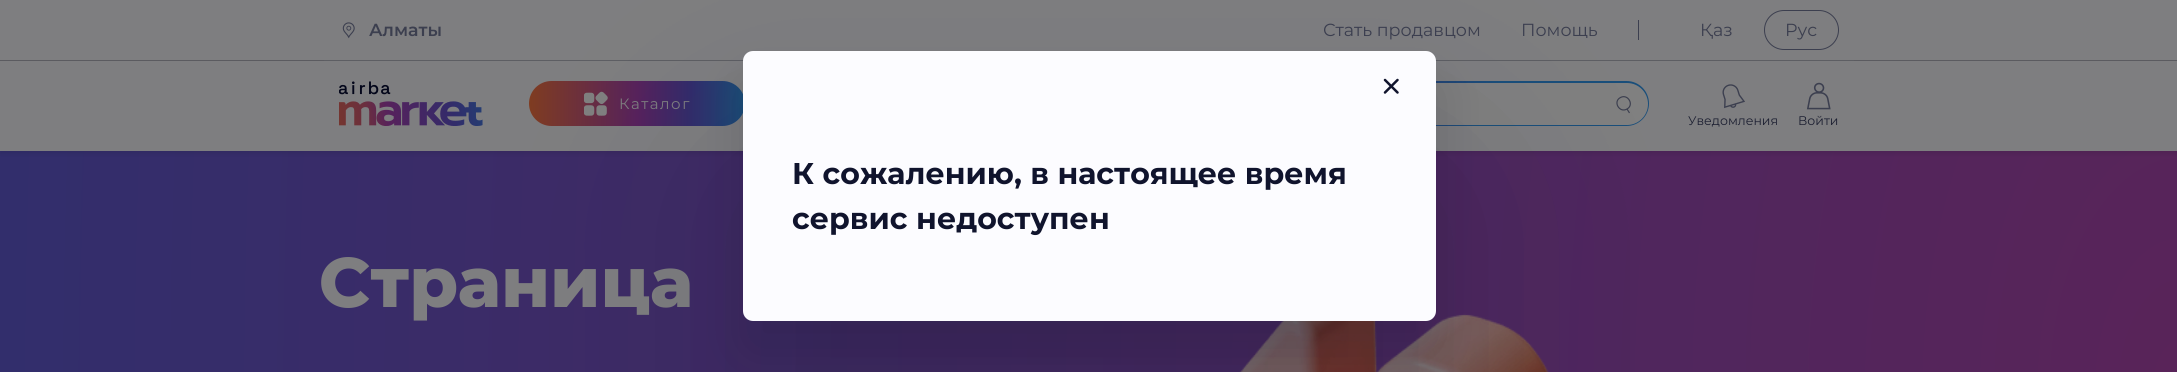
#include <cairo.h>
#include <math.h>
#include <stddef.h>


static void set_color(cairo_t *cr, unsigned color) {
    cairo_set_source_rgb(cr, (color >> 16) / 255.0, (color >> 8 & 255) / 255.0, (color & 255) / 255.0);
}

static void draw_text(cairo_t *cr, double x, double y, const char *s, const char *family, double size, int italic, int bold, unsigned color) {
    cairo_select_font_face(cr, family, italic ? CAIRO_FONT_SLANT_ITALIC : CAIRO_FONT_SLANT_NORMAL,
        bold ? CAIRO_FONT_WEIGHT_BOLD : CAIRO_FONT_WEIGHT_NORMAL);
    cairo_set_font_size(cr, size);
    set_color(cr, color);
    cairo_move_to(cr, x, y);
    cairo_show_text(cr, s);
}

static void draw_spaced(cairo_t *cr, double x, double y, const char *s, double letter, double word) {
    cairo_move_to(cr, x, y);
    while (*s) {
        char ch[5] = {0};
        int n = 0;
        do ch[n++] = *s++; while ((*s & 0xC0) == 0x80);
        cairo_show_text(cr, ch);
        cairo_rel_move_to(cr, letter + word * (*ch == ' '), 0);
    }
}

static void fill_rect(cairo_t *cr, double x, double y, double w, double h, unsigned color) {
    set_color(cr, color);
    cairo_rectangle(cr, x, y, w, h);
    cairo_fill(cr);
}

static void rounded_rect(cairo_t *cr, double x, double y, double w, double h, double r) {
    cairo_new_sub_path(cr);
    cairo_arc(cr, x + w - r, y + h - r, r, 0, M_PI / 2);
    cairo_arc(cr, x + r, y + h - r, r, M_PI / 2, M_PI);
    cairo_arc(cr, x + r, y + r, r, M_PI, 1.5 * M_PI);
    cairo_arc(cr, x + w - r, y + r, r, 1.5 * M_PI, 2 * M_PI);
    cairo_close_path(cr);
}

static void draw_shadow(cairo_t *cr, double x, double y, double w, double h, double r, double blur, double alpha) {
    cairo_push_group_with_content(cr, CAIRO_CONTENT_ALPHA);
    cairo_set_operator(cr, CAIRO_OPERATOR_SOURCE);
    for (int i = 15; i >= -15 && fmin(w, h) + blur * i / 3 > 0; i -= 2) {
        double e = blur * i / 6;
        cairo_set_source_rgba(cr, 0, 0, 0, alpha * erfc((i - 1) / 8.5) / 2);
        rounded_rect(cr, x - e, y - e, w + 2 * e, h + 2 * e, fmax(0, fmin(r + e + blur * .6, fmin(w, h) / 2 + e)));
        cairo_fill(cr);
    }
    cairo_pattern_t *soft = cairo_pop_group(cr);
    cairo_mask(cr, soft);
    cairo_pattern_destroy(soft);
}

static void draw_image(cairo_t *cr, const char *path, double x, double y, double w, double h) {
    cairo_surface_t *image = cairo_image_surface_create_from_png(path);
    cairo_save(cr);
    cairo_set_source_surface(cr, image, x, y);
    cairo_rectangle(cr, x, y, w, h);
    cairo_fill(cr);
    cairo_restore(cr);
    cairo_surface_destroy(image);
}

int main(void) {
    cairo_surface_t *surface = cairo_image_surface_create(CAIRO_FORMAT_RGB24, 2177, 372);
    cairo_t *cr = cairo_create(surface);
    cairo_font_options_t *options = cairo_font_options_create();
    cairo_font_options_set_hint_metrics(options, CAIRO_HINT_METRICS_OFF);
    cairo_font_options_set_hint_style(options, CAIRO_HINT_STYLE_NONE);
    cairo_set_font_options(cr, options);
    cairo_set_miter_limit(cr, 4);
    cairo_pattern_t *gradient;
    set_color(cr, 0xFFFFFF);
    cairo_paint(cr);
    gradient = cairo_pattern_create_radial(0, 0, 0, 0, 0, 1);
    cairo_pattern_set_matrix(gradient, &(cairo_matrix_t){1.0 / 2178, 0, 0, 1.0 / 3948, -1.0 * 2178 / 2178, -1.0 * 393 / 3948});
    cairo_pattern_add_color_stop_rgba(gradient, 0, 0.349, 0.141, 0.349, 1);
    cairo_pattern_add_color_stop_rgba(gradient, 0.45, 0.282, 0.157, 0.38, 1);
    cairo_pattern_add_color_stop_rgba(gradient, 1, 0.196, 0.18, 0.424, 1);
    cairo_set_source(cr, gradient);
    cairo_pattern_destroy(gradient);
    cairo_rectangle(cr, 0, 151, 2177, 221);
    cairo_fill(cr);
    set_color(cr, 0x000000);
    draw_shadow(cr, 0, 3, 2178, 151, 0, 2.5, 0.08);
    fill_rect(cr, 0, 0, 2177, 151, 0x7E7E80);
    fill_rect(cr, 0, 60, 2177, 1, 0x5B5B60);
    fill_rect(cr, 324, 60, 1530, 1, 0x5D5E63);
    draw_image(cr, "assets/img1.png", 342, 22, 13, 17);
    draw_text(cr, 369, 36, "Алматы", "Montserrat SemiBold", 17.5, 0, 0, 0x3C3F4F);
    draw_text(cr, 1323, 36, "Стать продавцом", "Montserrat", 17.5, 0, 0, 0x3C3F4F);
    draw_text(cr, 1521, 36, "Помощь", "Montserrat", 17.5, 0, 0, 0x3C3F4F);
    fill_rect(cr, 1638, 20, 1, 20, 0x3C3F4F);
    draw_text(cr, 1700, 36, "Қаз", "Montserrat", 17.5, 0, 0, 0x3C3F4F);
    rounded_rect(cr, 1764.5, 10.5, 74, 39, 19.5);
    cairo_set_line_width(cr, 1);
    cairo_stroke(cr);
    draw_text(cr, 1785, 36, "Рус", "Montserrat", 17.5, 0, 0, 0x3C3F4F);
    draw_image(cr, "assets/img2.png", 339, 81, 144, 45);
    gradient = cairo_pattern_create_linear(529, 104, 745, 104);
    cairo_pattern_add_color_stop_rgba(gradient, 0, 0.498, 0.235, 0.129, 1);
    cairo_pattern_add_color_stop_rgba(gradient, 0.25, 0.42, 0.184, 0.243, 1);
    cairo_pattern_add_color_stop_rgba(gradient, 0.5, 0.341, 0.133, 0.361, 1);
    cairo_pattern_add_color_stop_rgba(gradient, 0.75, 0.196, 0.173, 0.42, 1);
    cairo_pattern_add_color_stop_rgba(gradient, 1, 0.098, 0.306, 0.478, 1);
    cairo_set_source(cr, gradient);
    cairo_pattern_destroy(gradient);
    rounded_rect(cr, 529, 81, 216, 45, 22.5);
    cairo_fill(cr);
    draw_image(cr, "assets/img3.png", 584, 91, 24, 25);
    cairo_set_font_size(cr, 15);
    set_color(cr, 0x7E7E80);
    draw_spaced(cr, 619, 109, "Каталог", 1.5, 0);
    gradient = cairo_pattern_create_linear(855, -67, 1579, 274);
    cairo_pattern_add_color_stop_rgba(gradient, 0.15, 0.498, 0.235, 0.129, 1);
    cairo_pattern_add_color_stop_rgba(gradient, 0.39, 0.353, 0.137, 0.345, 1);
    cairo_pattern_add_color_stop_rgba(gradient, 0.59, 0.188, 0.18, 0.424, 1);
    cairo_pattern_add_color_stop_rgba(gradient, 0.81, 0.098, 0.306, 0.478, 1);
    cairo_set_source(cr, gradient);
    cairo_pattern_destroy(gradient);
    rounded_rect(cr, 785, 81, 864, 45, 22.5);
    cairo_fill(cr);
    set_color(cr, 0x808080);
    rounded_rect(cr, 786, 83, 862, 42, 21);
    cairo_fill(cr);
    cairo_new_path(cr);
    cairo_move_to(cr, 1627, 109);
    cairo_curve_to(cr, 1619.5, 113.5, 1612.5, 101.5, 1620.5, 97.5);
    cairo_curve_to(cr, 1628, 93.5, 1634.5, 105, 1627, 109);
    cairo_close_path(cr);
    cairo_move_to(cr, 1627, 109);
    cairo_line_to(cr, 1629.5, 113);
    set_color(cr, 0x3C3F4F);
    cairo_set_line_width(cr, 1.2);
    cairo_stroke(cr);
    draw_image(cr, "assets/img4.png", 1722, 84, 23, 25);
    draw_text(cr, 1688, 125, "Уведомления", "Montserrat", 12.5, 0, 0, 0x1C1F31);
    draw_image(cr, "assets/img5.png", 1806, 82, 25, 28);
    draw_text(cr, 1798, 125, "Войти", "Montserrat", 12.5, 0, 0, 0x1C1F31);
    draw_text(cr, 319, 307, "Страница", "Montserrat ExtraBold", 70, 0, 0, 0x7E7E80);
    draw_image(cr, "assets/img6.png", 1239, 313, 310, 59);
    set_color(cr, 0x10142D);
    draw_shadow(cr, 743, 83, 693, 270, 10, 23.5, 0.14);
    draw_shadow(cr, 743, 176, 693, 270, 10, 105.5, 0.2);
    set_color(cr, 0xFCFCFF);
    rounded_rect(cr, 743, 51, 693, 270, 10);
    cairo_fill(cr);
    cairo_new_path(cr);
    cairo_move_to(cr, 1397.5, 80);
    cairo_line_to(cr, 1385, 92.5);
    cairo_move_to(cr, 1397.5, 92.5);
    cairo_line_to(cr, 1385, 80);
    set_color(cr, 0x10142D);
    cairo_set_line_width(cr, 2.5);
    cairo_set_line_cap(cr, CAIRO_LINE_CAP_ROUND);
    cairo_set_line_join(cr, CAIRO_LINE_JOIN_ROUND);
    cairo_stroke(cr);
    draw_text(cr, 792, 184, "К сожалению, в настоящее время", "Montserrat", 30, 0, 1, 0x10142D);
    draw_text(cr, 792, 229, "сервис недоступен", "Montserrat", 30, 0, 1, 0x10142D);
    cairo_surface_write_to_png(surface, "output.png");
    cairo_font_options_destroy(options);
    cairo_destroy(cr);
    cairo_surface_destroy(surface);
    return 0;
}
